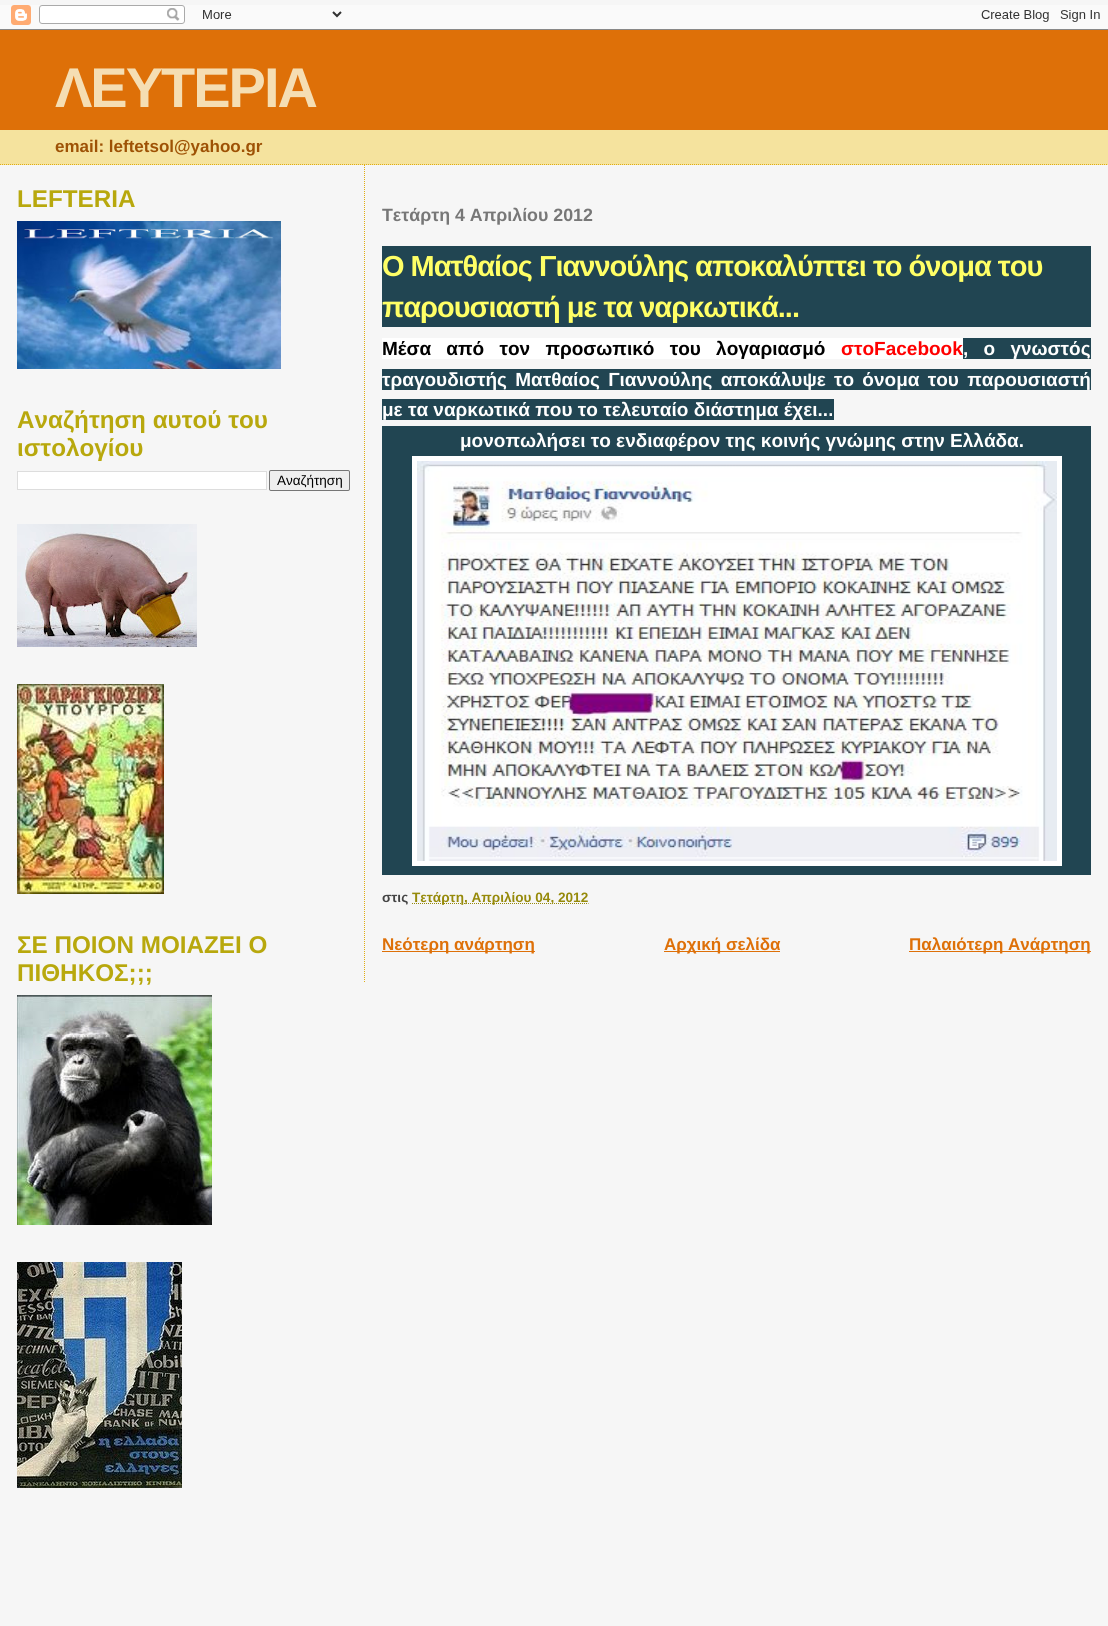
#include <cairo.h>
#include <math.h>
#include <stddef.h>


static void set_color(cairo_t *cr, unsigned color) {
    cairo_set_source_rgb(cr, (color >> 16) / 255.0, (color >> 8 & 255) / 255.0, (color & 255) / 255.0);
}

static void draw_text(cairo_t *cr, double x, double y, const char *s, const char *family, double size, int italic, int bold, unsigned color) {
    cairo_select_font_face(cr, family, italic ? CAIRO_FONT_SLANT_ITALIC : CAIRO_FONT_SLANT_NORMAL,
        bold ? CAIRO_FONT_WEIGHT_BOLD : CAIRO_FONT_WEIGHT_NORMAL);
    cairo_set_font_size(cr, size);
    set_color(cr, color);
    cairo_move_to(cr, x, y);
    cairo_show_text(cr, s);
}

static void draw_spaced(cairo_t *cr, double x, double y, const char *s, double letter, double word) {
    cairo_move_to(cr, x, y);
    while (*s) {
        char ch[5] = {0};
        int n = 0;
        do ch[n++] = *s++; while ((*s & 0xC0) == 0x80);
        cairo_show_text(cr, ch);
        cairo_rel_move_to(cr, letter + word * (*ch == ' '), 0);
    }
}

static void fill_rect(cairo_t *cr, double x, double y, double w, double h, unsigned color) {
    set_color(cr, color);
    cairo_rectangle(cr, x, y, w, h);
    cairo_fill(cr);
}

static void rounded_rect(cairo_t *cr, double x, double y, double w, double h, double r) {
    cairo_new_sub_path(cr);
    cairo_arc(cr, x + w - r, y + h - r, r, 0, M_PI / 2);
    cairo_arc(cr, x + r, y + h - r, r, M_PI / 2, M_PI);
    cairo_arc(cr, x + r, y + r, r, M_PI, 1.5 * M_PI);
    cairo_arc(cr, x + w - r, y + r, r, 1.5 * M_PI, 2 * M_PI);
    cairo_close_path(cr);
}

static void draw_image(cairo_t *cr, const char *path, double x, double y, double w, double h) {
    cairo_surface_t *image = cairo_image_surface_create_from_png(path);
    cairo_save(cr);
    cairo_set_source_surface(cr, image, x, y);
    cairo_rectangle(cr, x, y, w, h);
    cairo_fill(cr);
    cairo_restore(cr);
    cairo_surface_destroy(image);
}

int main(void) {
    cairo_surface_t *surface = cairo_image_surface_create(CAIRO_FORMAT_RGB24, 1108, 1626);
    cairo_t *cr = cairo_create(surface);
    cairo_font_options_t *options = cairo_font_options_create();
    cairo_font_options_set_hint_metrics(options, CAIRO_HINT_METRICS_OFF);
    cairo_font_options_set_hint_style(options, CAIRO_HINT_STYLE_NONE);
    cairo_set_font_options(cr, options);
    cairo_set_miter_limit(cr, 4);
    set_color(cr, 0xF6F6F6);
    cairo_paint(cr);
    draw_image(cr, "assets/img1.png", 0, 5, 1108, 25);
    fill_rect(cr, 0, 130, 1108, 35, 0xF5E39E);
    cairo_new_path(cr);
    cairo_move_to(cr, 0, 164.5);
    cairo_line_to(cr, 1108, 164.5);
    set_color(cr, 0xE0AD12);
    cairo_set_line_width(cr, 1);
    cairo_set_dash(cr, (double[]){1, 1}, 2, 0);
    cairo_stroke(cr);
    fill_rect(cr, 0, 30, 1108, 100, 0xDE7008);
    cairo_select_font_face(cr, "Liberation Sans", CAIRO_FONT_SLANT_NORMAL, CAIRO_FONT_WEIGHT_BOLD);
    cairo_set_font_size(cr, 56);
    set_color(cr, 0xF5DEB3);
    draw_spaced(cr, 55, 107, "ΛΕΥΤΕΡΙΑ", -2, 0);
    draw_text(cr, 55, 152, "email: leftetsol@yahoo.gr", "Liberation Sans", 17, 0, 1, 0x9E5205);
    draw_text(cr, 17, 207, "LEFTERIA", "Liberation Sans", 24.25, 0, 1, 0xB8A80D);
    draw_image(cr, "assets/img2.png", 17, 221, 264, 148);
    draw_text(cr, 17, 428, "Αναζήτηση αυτού του", "Liberation Sans", 24.25, 0, 1, 0xB8A80D);
    draw_text(cr, 17, 456, "ιστολογίου", "Liberation Sans", 24.25, 0, 1, 0xB8A80D);
    set_color(cr, 0xFFFFFF);
    cairo_rectangle(cr, 17.5, 471.5, 249, 18);
    cairo_fill_preserve(cr);
    set_color(cr, 0xDDDDDD);
    cairo_set_dash(cr, NULL, 0, 0);
    cairo_stroke(cr);
    set_color(cr, 0xEFEFEF);
    rounded_rect(cr, 269.5, 470.5, 80, 20, 1.5);
    cairo_fill_preserve(cr);
    set_color(cr, 0x767676);
    cairo_stroke(cr);
    draw_text(cr, 277, 485, "Αναζήτηση", "Liberation Sans", 13.5, 0, 0, 0x000000);
    draw_image(cr, "assets/img3.png", 17, 524, 180, 123);
    draw_image(cr, "assets/img4.png", 17, 684, 147, 210);
    draw_text(cr, 17, 953, "ΣΕ ΠΟΙΟΝ ΜΟΙΑΖΕΙ Ο", "Liberation Sans", 24.25, 0, 1, 0xB8A80D);
    draw_text(cr, 17, 981, "ΠΙΘΗΚΟΣ;;;", "Liberation Sans", 24.25, 0, 1, 0xB8A80D);
    draw_image(cr, "assets/img5.png", 17, 995, 195, 230);
    draw_image(cr, "assets/img6.png", 17, 1262, 165, 226);
    cairo_new_path(cr);
    cairo_move_to(cr, 364.5, 165);
    cairo_line_to(cr, 364.5, 982);
    set_color(cr, 0xE0AD12);
    cairo_set_dash(cr, (double[]){1, 1}, 2, 0);
    cairo_stroke(cr);
    draw_text(cr, 382, 221, "Τετάρτη 4 Απριλίου 2012", "Liberation Sans", 17.8, 0, 1, 0x777777);
    fill_rect(cr, 382, 246, 709, 81, 0x214552);
    cairo_set_font_size(cr, 29);
    set_color(cr, 0xFFFF66);
    draw_spaced(cr, 382, 276, "Ο Ματθαίος Γιαννούλης αποκαλύπτει το όνομα του", -1, 0);
    draw_spaced(cr, 382, 317, "παρουσιαστή με τα ναρκωτικά...", -1, 0);
    fill_rect(cr, 382, 338, 581, 21, 0xFFFFFF);
    cairo_set_font_size(cr, 19);
    set_color(cr, 0x000000);
    draw_spaced(cr, 382, 355, "Μέσα από τον προσωπικό του λογαριασμό", 0, 10);
    draw_text(cr, 841, 355, "στοFacebook", "Liberation Sans", 19, 0, 1, 0xFF0000);
    fill_rect(cr, 963, 338, 128, 21, 0x214552);
    set_color(cr, 0xFFFFFF);
    draw_spaced(cr, 963, 355, ", ο γνωστός", 0, 10);
    fill_rect(cr, 382, 369, 709, 21, 0x214552);
    set_color(cr, 0xFFFFFF);
    draw_spaced(cr, 382, 386, "τραγουδιστής Ματθαίος Γιαννούλης αποκάλυψε το όνομα του παρουσιαστή", 0, 3);
    fill_rect(cr, 382, 399, 452, 21, 0x214552);
    draw_text(cr, 382, 416, "με τα ναρκωτικά που το τελευταίο διάστημα έχει...", "Liberation Sans", 19, 0, 1, 0xFFFFFF);
    fill_rect(cr, 382, 426, 709, 449, 0x214552);
    draw_text(cr, 460, 447, "μονοπωλήσει το ενδιαφέρον της κοινής γνώμης στην Ελλάδα.", "Liberation Sans", 19, 0, 1, 0xFFFFFF);
    cairo_rectangle(cr, 414.5, 458.5, 645, 405);
    cairo_set_line_width(cr, 5);
    cairo_set_dash(cr, NULL, 0, 0);
    cairo_stroke(cr);
    draw_image(cr, "assets/img7.png", 417, 461, 640, 400);
    draw_text(cr, 382, 902, "στις", "Liberation Sans", 13.6, 0, 1, 0x444444);
    cairo_new_path(cr);
    cairo_move_to(cr, 412, 903.5);
    cairo_line_to(cr, 588.5, 903.5);
    set_color(cr, 0x968A0A);
    cairo_set_line_width(cr, 1);
    cairo_set_dash(cr, (double[]){1, 1}, 2, 0);
    cairo_stroke(cr);
    draw_text(cr, 412, 902, "Τετάρτη, Απριλίου 04, 2012", "Liberation Sans", 13.6, 0, 1, 0x968A0A);
    fill_rect(cr, 382, 951, 153, 1, 0xDE7008);
    draw_text(cr, 382, 950, "Νεότερη ανάρτηση", "Liberation Sans", 17, 0, 1, 0xDE7008);
    fill_rect(cr, 664, 951, 116, 1, 0xDE7008);
    draw_text(cr, 664, 950, "Αρχική σελίδα", "Liberation Sans", 17, 0, 1, 0xDE7008);
    fill_rect(cr, 909, 951, 182, 1, 0xDE7008);
    draw_text(cr, 909, 950, "Παλαιότερη Ανάρτηση", "Liberation Sans", 17, 0, 1, 0xDE7008);
    cairo_surface_write_to_png(surface, "output.png");
    cairo_font_options_destroy(options);
    cairo_destroy(cr);
    cairo_surface_destroy(surface);
    return 0;
}
